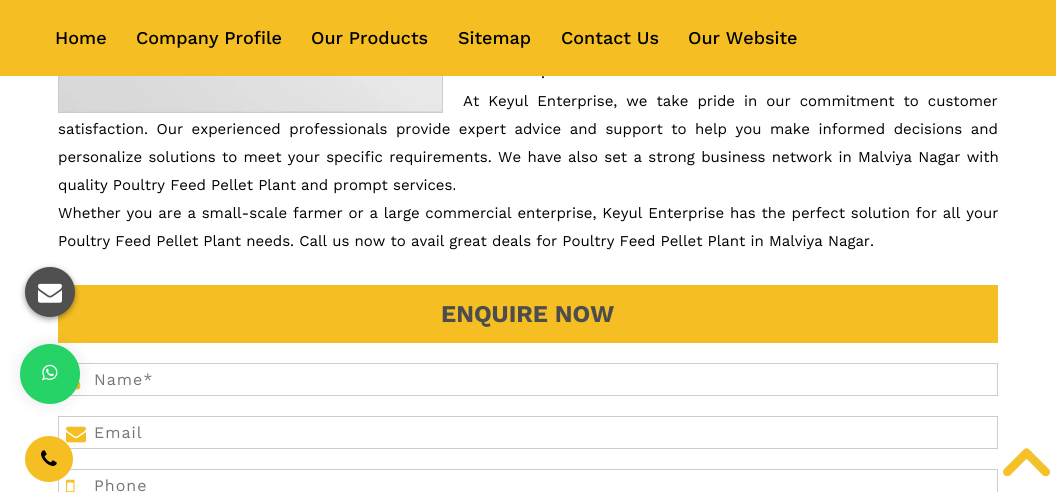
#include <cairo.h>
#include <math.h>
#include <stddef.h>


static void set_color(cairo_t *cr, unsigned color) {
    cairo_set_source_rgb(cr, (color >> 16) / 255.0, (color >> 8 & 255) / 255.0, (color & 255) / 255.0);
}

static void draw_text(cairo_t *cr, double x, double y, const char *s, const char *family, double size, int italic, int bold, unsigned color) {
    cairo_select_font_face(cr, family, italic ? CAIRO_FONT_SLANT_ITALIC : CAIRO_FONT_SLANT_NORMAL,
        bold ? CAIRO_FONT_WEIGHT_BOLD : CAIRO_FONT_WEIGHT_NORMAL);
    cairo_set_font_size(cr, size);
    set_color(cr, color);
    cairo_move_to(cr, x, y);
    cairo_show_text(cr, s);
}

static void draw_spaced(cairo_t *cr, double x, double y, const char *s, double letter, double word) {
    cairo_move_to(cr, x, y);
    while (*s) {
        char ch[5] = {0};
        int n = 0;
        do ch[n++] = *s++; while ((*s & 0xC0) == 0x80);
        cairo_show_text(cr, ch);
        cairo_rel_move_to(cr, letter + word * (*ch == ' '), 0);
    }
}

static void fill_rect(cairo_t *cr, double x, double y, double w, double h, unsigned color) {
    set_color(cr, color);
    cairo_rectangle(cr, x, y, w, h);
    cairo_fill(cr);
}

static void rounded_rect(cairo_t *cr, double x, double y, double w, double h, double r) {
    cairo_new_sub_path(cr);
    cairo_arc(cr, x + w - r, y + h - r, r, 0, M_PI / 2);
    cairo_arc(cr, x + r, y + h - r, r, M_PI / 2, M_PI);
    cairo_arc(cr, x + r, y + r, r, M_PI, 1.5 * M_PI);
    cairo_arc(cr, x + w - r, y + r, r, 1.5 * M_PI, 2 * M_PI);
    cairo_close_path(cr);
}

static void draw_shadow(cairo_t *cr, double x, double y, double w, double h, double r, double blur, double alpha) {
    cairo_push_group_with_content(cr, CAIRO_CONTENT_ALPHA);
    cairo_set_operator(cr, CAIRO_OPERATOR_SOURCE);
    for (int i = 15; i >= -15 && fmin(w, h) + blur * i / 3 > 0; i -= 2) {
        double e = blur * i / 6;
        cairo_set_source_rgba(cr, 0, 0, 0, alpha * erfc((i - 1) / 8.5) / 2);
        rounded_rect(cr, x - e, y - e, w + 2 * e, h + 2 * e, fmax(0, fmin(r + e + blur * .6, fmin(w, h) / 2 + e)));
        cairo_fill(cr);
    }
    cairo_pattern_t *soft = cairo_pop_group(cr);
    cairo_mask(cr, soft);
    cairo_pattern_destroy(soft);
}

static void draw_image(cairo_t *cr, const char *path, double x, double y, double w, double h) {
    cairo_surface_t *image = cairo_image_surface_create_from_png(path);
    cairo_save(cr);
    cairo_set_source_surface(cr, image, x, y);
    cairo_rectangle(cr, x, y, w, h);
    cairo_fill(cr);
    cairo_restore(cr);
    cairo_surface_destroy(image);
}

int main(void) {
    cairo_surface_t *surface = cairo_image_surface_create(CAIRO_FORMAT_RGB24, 1056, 492);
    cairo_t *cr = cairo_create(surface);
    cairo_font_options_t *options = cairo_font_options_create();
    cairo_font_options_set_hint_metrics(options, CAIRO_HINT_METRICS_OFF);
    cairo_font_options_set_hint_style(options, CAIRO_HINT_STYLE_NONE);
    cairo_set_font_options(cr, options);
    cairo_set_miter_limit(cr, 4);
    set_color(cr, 0xFFFFFF);
    cairo_paint(cr);
    fill_rect(cr, 58, 285, 940, 58, 0xF5BF23);
    set_color(cr, 0x000000);
    draw_shadow(cr, 25, 269, 50, 50, 25, 3, 0.4);
    set_color(cr, 0x505050);
    cairo_arc(cr, 50, 292, 25, 0, 2 * M_PI);
    cairo_fill(cr);
    draw_image(cr, "assets/img1.png", 38, 283, 24, 20);
    cairo_rectangle(cr, 58.5, -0.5, 384, 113);
    set_color(cr, 0xCCCCCC);
    cairo_set_line_width(cr, 1);
    cairo_stroke(cr);
    fill_rect(cr, 0, 0, 1056, 76, 0xF5BF23);
    draw_text(cr, 55, 44, "Home", "Work Sans Medium", 18, 0, 0, 0x000000);
    draw_text(cr, 136, 44, "Company Profile", "Work Sans Medium", 18, 0, 0, 0x000000);
    draw_text(cr, 311, 44, "Our Products", "Work Sans Medium", 18, 0, 0, 0x000000);
    draw_text(cr, 458, 44, "Sitemap", "Work Sans Medium", 18, 0, 0, 0x000000);
    draw_text(cr, 561, 44, "Contact Us", "Work Sans Medium", 18, 0, 0, 0x000000);
    draw_text(cr, 688, 44, "Our Website", "Work Sans Medium", 18, 0, 0, 0x000000);
    draw_image(cr, "assets/img2.png", 59, 76, 383, 36);
    draw_text(cr, 541, 78, ".", "Work Sans", 15, 0, 0, 0x000000);
    draw_spaced(cr, 463, 106, "At Keyul Enterprise, we take pride in our commitment to customer", 0, 3.9);
    draw_spaced(cr, 58, 134, "satisfaction. Our experienced professionals provide expert advice and support to help you make informed decisions and", 0, 3.4);
    draw_spaced(cr, 58, 162, "personalize solutions to meet your specific requirements. We have also set a strong business network in Malviya Nagar with", 0, 1.2);
    draw_text(cr, 58, 190, "quality Poultry Feed Pellet Plant and prompt services.", "Work Sans", 15, 0, 0, 0x000000);
    draw_spaced(cr, 58, 218, "Whether you are a small-scale farmer or a large commercial enterprise, Keyul Enterprise has the perfect solution for all your", 0, 0.7);
    draw_text(cr, 58, 246, "Poultry Feed Pellet Plant needs. Call us now to avail great deals for Poultry Feed Pellet Plant in Malviya Nagar.", "Work Sans", 15, 0, 0, 0x000000);
    draw_text(cr, 441, 322, "ENQUIRE NOW", "Work Sans", 24, 0, 1, 0x4E4D4D);
    cairo_rectangle(cr, 58.5, 363.5, 939, 32);
    set_color(cr, 0xCCCCCC);
    cairo_stroke(cr);
    draw_image(cr, "assets/img3.png", 75, 381, 6, 9);
    cairo_select_font_face(cr, "Work Sans", CAIRO_FONT_SLANT_NORMAL, CAIRO_FONT_WEIGHT_NORMAL);
    cairo_set_font_size(cr, 16);
    set_color(cr, 0x757575);
    draw_spaced(cr, 94, 385, "Name*", 1, 0);
    cairo_rectangle(cr, 58.5, 416.5, 939, 32);
    set_color(cr, 0xCCCCCC);
    cairo_stroke(cr);
    draw_image(cr, "assets/img4.png", 66, 426, 20, 17);
    set_color(cr, 0x757575);
    draw_spaced(cr, 94, 438, "Email", 1, 0);
    cairo_rectangle(cr, 58.5, 469.5, 939, 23);
    set_color(cr, 0xCCCCCC);
    cairo_stroke(cr);
    draw_image(cr, "assets/img5.png", 66, 479, 9, 13);
    set_color(cr, 0x757575);
    draw_spaced(cr, 94, 491, "Phone", 1, 0);
    set_color(cr, 0x000000);
    draw_shadow(cr, 25, 349, 50, 50, 25, 10, 0.15);
    set_color(cr, 0x25D366);
    cairo_arc(cr, 50, 374, 30, 0, 2 * M_PI);
    cairo_fill(cr);
    draw_image(cr, "assets/img6.png", 42, 364, 16, 17);
    set_color(cr, 0xF5BF23);
    cairo_new_path(cr);
    cairo_move_to(cr, 49, 436);
    cairo_curve_to(cr, 62.5, 436, 73, 446.5, 73, 459);
    cairo_curve_to(cr, 73, 471.5, 62.5, 482, 49, 482);
    cairo_curve_to(cr, 35.5, 482, 25, 471.5, 25, 459);
    cairo_curve_to(cr, 25, 446.5, 35.5, 436, 49, 436);
    cairo_close_path(cr);
    cairo_fill(cr);
    draw_image(cr, "assets/img7.png", 41, 450, 16, 16);
    draw_image(cr, "assets/img8.png", 1003, 448, 47, 28);
    cairo_surface_write_to_png(surface, "output.png");
    cairo_font_options_destroy(options);
    cairo_destroy(cr);
    cairo_surface_destroy(surface);
    return 0;
}
